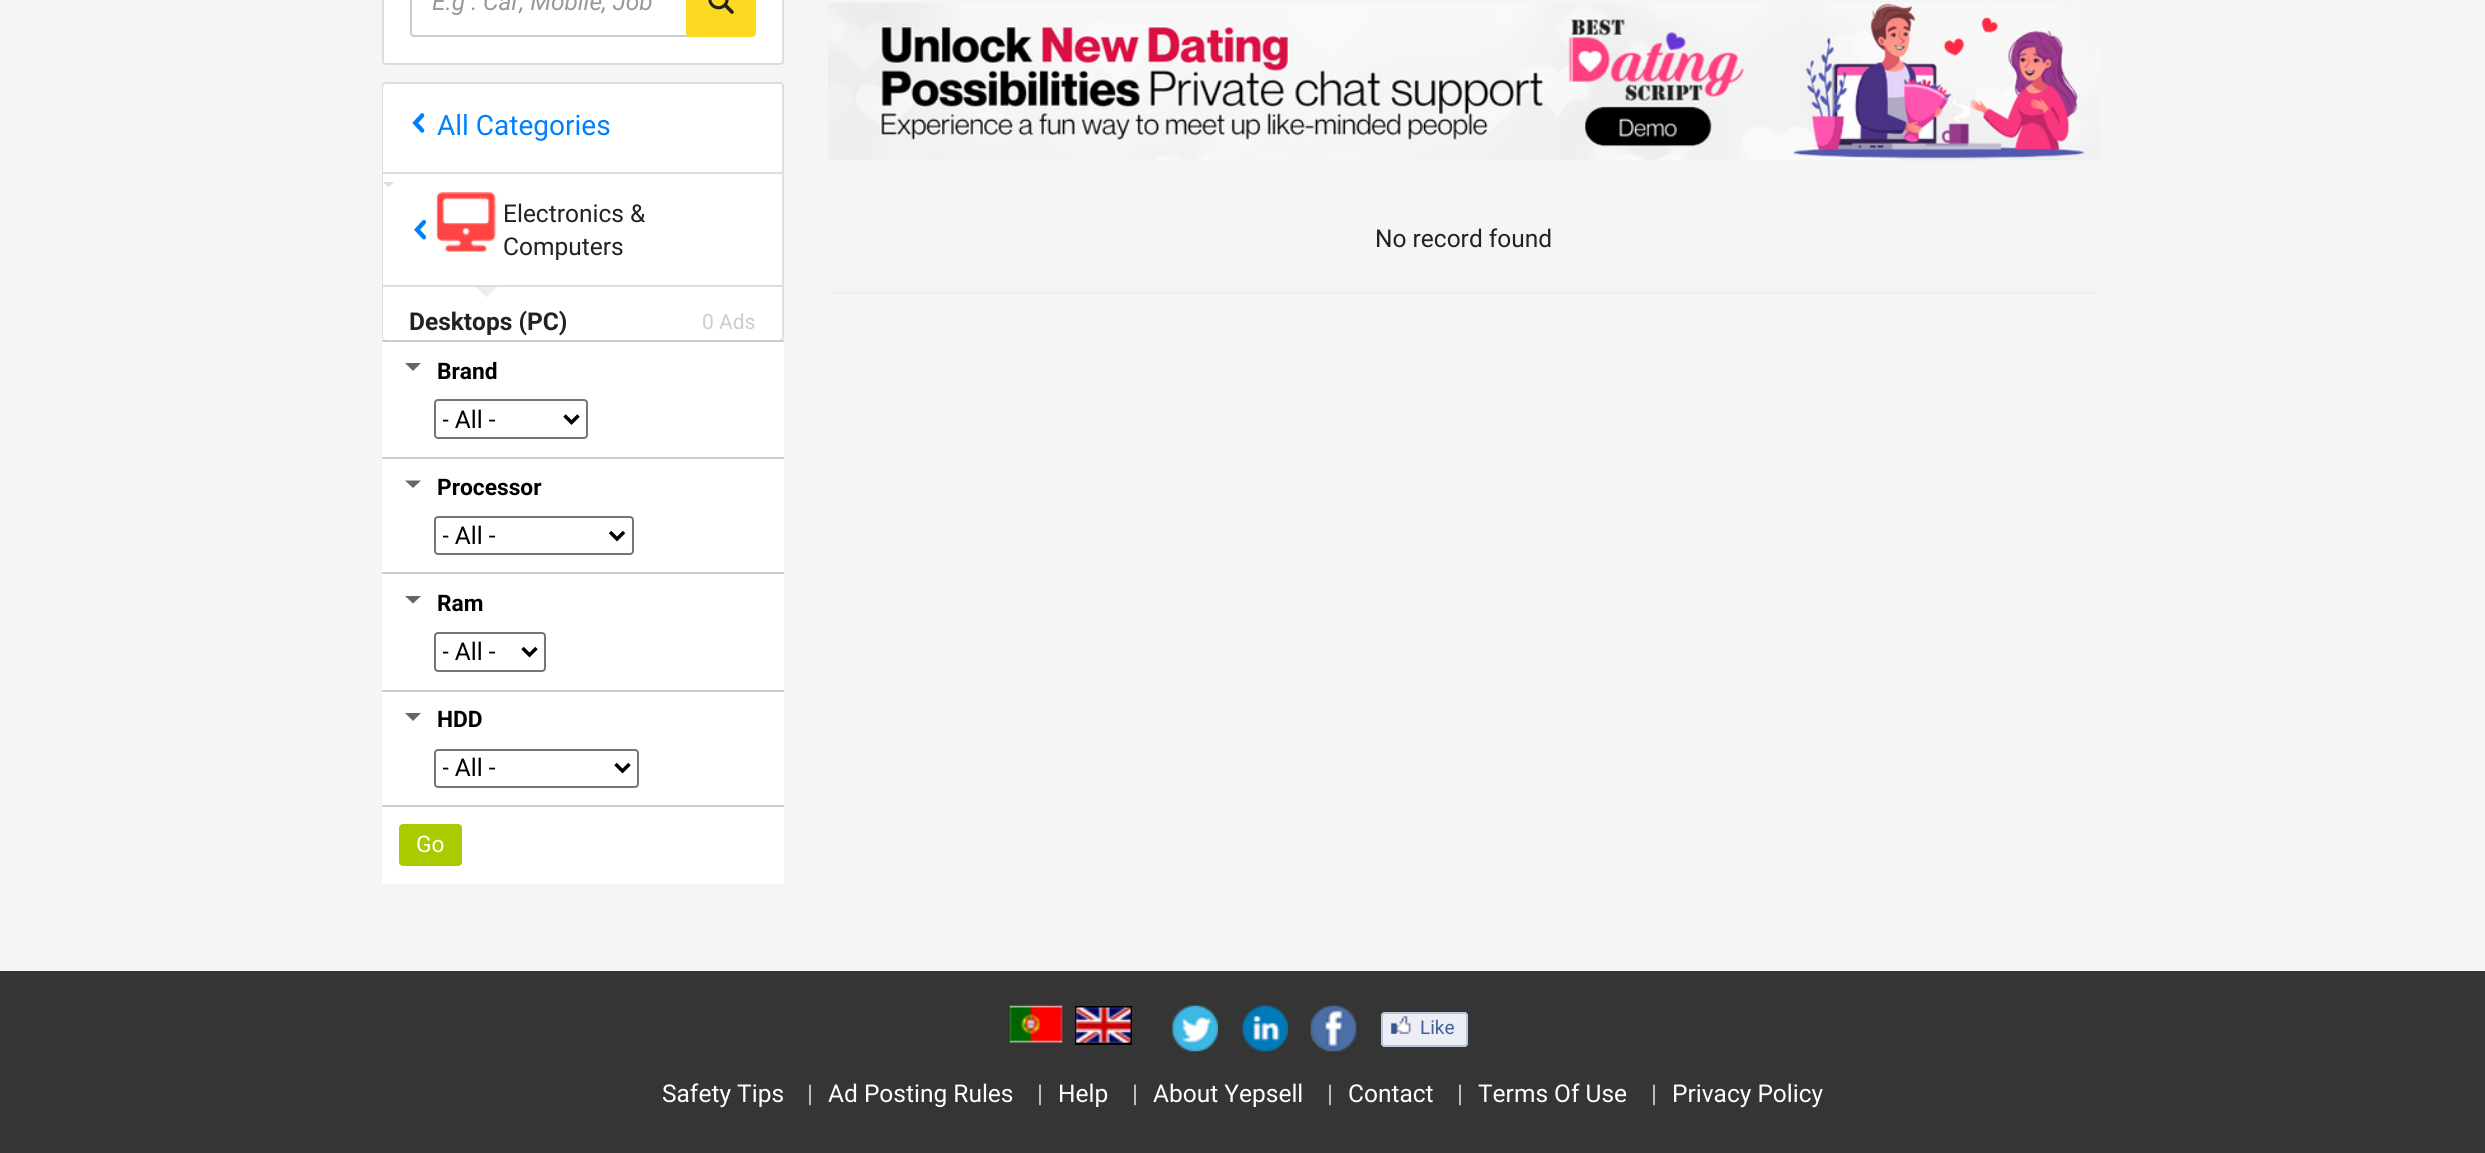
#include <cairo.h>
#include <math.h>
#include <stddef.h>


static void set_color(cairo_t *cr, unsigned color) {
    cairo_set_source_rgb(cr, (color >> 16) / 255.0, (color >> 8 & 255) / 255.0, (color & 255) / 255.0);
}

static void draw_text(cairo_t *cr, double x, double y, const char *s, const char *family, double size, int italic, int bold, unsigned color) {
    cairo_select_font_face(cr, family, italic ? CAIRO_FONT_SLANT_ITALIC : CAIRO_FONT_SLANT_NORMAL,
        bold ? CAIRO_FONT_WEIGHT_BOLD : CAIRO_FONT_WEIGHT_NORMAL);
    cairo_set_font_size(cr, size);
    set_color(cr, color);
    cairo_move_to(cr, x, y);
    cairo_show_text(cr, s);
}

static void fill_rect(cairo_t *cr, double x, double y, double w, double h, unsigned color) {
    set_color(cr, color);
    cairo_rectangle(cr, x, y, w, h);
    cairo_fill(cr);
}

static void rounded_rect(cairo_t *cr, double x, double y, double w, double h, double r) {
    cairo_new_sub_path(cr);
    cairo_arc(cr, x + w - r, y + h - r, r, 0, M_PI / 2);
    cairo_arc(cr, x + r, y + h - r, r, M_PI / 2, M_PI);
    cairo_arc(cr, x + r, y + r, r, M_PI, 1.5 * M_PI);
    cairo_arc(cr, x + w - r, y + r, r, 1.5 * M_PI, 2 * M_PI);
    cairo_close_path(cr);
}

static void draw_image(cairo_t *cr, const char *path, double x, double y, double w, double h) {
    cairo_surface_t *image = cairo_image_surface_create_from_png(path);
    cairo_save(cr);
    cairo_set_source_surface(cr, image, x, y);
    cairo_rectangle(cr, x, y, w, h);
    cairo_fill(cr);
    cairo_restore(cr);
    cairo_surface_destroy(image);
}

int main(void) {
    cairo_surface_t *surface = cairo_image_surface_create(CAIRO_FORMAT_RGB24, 2485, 1153);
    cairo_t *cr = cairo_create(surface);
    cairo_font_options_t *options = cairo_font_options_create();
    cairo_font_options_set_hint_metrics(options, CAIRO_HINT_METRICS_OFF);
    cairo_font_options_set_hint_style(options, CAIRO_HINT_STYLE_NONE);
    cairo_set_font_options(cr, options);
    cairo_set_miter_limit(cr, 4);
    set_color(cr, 0xF5F5F5);
    cairo_paint(cr);
    set_color(cr, 0xFFFFFF);
    rounded_rect(cr, 383, -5, 400, 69, 3);
    cairo_fill_preserve(cr);
    set_color(cr, 0xDDDDDD);
    cairo_stroke(cr);
    rounded_rect(cr, 411, -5, 285, 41, 3);
    set_color(cr, 0xCCCCCC);
    cairo_stroke(cr);
    draw_text(cr, 432, 10, "E.g : Car, Mobile, Job", "Roboto", 24.5, 1, 0, 0x999999);
    set_color(cr, 0xFDD922);
    rounded_rect(cr, 686, -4, 70, 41, 4);
    cairo_fill(cr);
    draw_image(cr, "assets/img1.png", 708, 0, 26, 14);
    set_color(cr, 0xFFFFFF);
    rounded_rect(cr, 383, 83, 400, 256, 3);
    cairo_fill_preserve(cr);
    set_color(cr, 0xDDDDDD);
    cairo_stroke(cr);
    set_color(cr, 0xFFFFFF);
    rounded_rect(cr, 383, 84, 399, 256, 4);
    cairo_fill(cr);
    fill_rect(cr, 383, 172, 399, 2, 0xDDDDDD);
    draw_image(cr, "assets/img2.png", 412, 113, 13, 20);
    draw_text(cr, 437, 135, "All Categories", "Roboto", 28, 0, 0, 0x007FFF);
    set_color(cr, 0xDDDDDD);
    cairo_new_path(cr);
    cairo_move_to(cr, 383, 182);
    cairo_line_to(cr, 394, 182);
    cairo_line_to(cr, 388.5, 187);
    cairo_close_path(cr);
    cairo_fill(cr);
    fill_rect(cr, 383, 285, 399, 2, 0xDDDDDD);
    draw_image(cr, "assets/img3.png", 414, 219, 12, 21);
    draw_image(cr, "assets/img4.png", 436, 192, 61, 60);
    draw_text(cr, 503, 222, "Electronics &", "Roboto", 24.5, 0, 0, 0x222222);
    draw_text(cr, 503, 255, "Computers", "Roboto", 24.5, 0, 0, 0x222222);
    set_color(cr, 0xEEEEEE);
    cairo_new_path(cr);
    cairo_move_to(cr, 476, 287);
    cairo_line_to(cr, 497, 287);
    cairo_line_to(cr, 486.5, 297.5);
    cairo_close_path(cr);
    cairo_fill(cr);
    draw_text(cr, 409, 330, "Desktops (PC)", "Roboto", 24.5, 0, 1, 0x222222);
    draw_text(cr, 702, 329, "0 Ads", "Roboto", 21, 0, 0, 0xCCCCCC);
    fill_rect(cr, 382, 342, 402, 463, 0xFFFFFF);
    fill_rect(cr, 382, 340, 402, 2, 0xCCCCCC);
    set_color(cr, 0x666666);
    cairo_new_path(cr);
    cairo_move_to(cr, 405, 363);
    cairo_line_to(cr, 413, 371);
    cairo_line_to(cr, 421, 363);
    cairo_close_path(cr);
    cairo_fill(cr);
    draw_text(cr, 437, 379, "Brand", "Roboto", 22.75, 0, 1, 0x000000);
    rounded_rect(cr, 435, 400, 152, 38, 3);
    set_color(cr, 0x767676);
    cairo_stroke(cr);
    cairo_new_path(cr);
    cairo_move_to(cr, 564.5, 415.5);
    cairo_line_to(cr, 571.5, 422.5);
    cairo_line_to(cr, 578.5, 415.5);
    set_color(cr, 0x000000);
    cairo_set_line_width(cr, 3.5);
    cairo_stroke(cr);
    cairo_save(cr);
    cairo_rectangle(cr, 443, 404, 115, 32);
    cairo_clip(cr);
    draw_text(cr, 442, 428, "- All -", "Roboto", 24.5, 0, 0, 0x000000);
    cairo_restore(cr);
    fill_rect(cr, 382, 457, 402, 2, 0xCCCCCC);
    set_color(cr, 0x666666);
    cairo_new_path(cr);
    cairo_move_to(cr, 405, 480.5);
    cairo_line_to(cr, 413, 488);
    cairo_line_to(cr, 421, 480.5);
    cairo_close_path(cr);
    cairo_fill(cr);
    draw_text(cr, 437, 495, "Processor", "Roboto", 22.75, 0, 1, 0x000000);
    rounded_rect(cr, 435, 517, 198, 37, 3);
    set_color(cr, 0x767676);
    cairo_set_line_width(cr, 2);
    cairo_stroke(cr);
    cairo_new_path(cr);
    cairo_move_to(cr, 610, 532);
    cairo_line_to(cr, 617, 539);
    cairo_line_to(cr, 624, 532);
    set_color(cr, 0x000000);
    cairo_set_line_width(cr, 3.5);
    cairo_stroke(cr);
    cairo_save(cr);
    cairo_rectangle(cr, 443, 520, 161, 31);
    cairo_clip(cr);
    draw_text(cr, 442, 544, "- All -", "Roboto", 24.5, 0, 0, 0x000000);
    cairo_restore(cr);
    fill_rect(cr, 382, 572, 402, 2, 0xCCCCCC);
    set_color(cr, 0x666666);
    cairo_new_path(cr);
    cairo_move_to(cr, 405, 596);
    cairo_line_to(cr, 413, 603.5);
    cairo_line_to(cr, 421, 596);
    cairo_close_path(cr);
    cairo_fill(cr);
    draw_text(cr, 437, 611, "Ram", "Roboto", 22.75, 0, 1, 0x000000);
    rounded_rect(cr, 435, 633, 110, 38, 3);
    set_color(cr, 0x767676);
    cairo_set_line_width(cr, 2);
    cairo_stroke(cr);
    cairo_new_path(cr);
    cairo_move_to(cr, 522.5, 648);
    cairo_line_to(cr, 529.5, 655);
    cairo_line_to(cr, 536.5, 648);
    set_color(cr, 0x000000);
    cairo_set_line_width(cr, 3.5);
    cairo_stroke(cr);
    cairo_save(cr);
    cairo_rectangle(cr, 443, 635, 73, 32);
    cairo_clip(cr);
    draw_text(cr, 442, 660, "- All -", "Roboto", 24.5, 0, 0, 0x000000);
    cairo_restore(cr);
    fill_rect(cr, 382, 690, 402, 2, 0xCCCCCC);
    set_color(cr, 0x666666);
    cairo_new_path(cr);
    cairo_move_to(cr, 405, 713);
    cairo_line_to(cr, 413, 721);
    cairo_line_to(cr, 421, 713);
    cairo_close_path(cr);
    cairo_fill(cr);
    draw_text(cr, 437, 727, "HDD", "Roboto", 22.75, 0, 1, 0x000000);
    rounded_rect(cr, 435, 750, 203, 37, 3);
    set_color(cr, 0x767676);
    cairo_set_line_width(cr, 2);
    cairo_stroke(cr);
    cairo_new_path(cr);
    cairo_move_to(cr, 615.5, 764);
    cairo_line_to(cr, 622.5, 771);
    cairo_line_to(cr, 629.5, 764);
    set_color(cr, 0x000000);
    cairo_set_line_width(cr, 3.5);
    cairo_stroke(cr);
    cairo_save(cr);
    cairo_rectangle(cr, 443, 753, 166, 31);
    cairo_clip(cr);
    draw_text(cr, 442, 776, "- All -", "Roboto", 24.5, 0, 0, 0x000000);
    cairo_restore(cr);
    fill_rect(cr, 382, 807, 402, 77, 0xFFFFFF);
    fill_rect(cr, 382, 805, 402, 2, 0xCCCCCC);
    set_color(cr, 0xABCA00);
    rounded_rect(cr, 399, 824, 63, 42, 4);
    cairo_fill(cr);
    draw_text(cr, 416, 852, "Go", "Roboto", 22.75, 0, 0, 0xFFFFFF);
    fill_rect(cr, 828, 292, 1272, 2, 0xEFEFEF);
    draw_image(cr, "assets/img5.png", 828, 3, 1272, 158);
    draw_text(cr, 1375, 247, "No record found", "Roboto", 24.5, 0, 0, 0x222222);
    fill_rect(cr, 0, 971, 2485, 182, 0x353535);
    draw_image(cr, "assets/img6.png", 1009, 1005, 54, 38);
    cairo_rectangle(cr, 1076, 1007, 55, 37);
    set_color(cr, 0x000000);
    cairo_set_line_width(cr, 2);
    cairo_stroke(cr);
    draw_image(cr, "assets/img7.png", 1076, 1007, 55, 36);
    draw_image(cr, "assets/img8.png", 1172, 1005, 46, 47);
    draw_image(cr, "assets/img9.png", 1242, 1005, 46, 47);
    draw_image(cr, "assets/img10.png", 1310, 1005, 47, 47);
    set_color(cr, 0xEBEEF5);
    rounded_rect(cr, 1381, 1012, 87, 35, 4);
    cairo_fill(cr);
    draw_image(cr, "assets/img11.png", 1391, 1016, 20, 18);
    rounded_rect(cr, 1382, 1013, 85, 33, 3);
    set_color(cr, 0xB8C8E1);
    cairo_stroke(cr);
    draw_text(cr, 1420, 1034, "Like", "Roboto", 19, 0, 0, 0x3E5E97);
    draw_text(cr, 662, 1102, "Safety Tips", "Roboto", 24.5, 0, 0, 0xFFFFFF);
    draw_text(cr, 807, 1102, "|", "Roboto", 24.5, 0, 0, 0xCCCCCC);
    draw_text(cr, 828, 1102, "Ad Posting Rules", "Roboto", 24.5, 0, 0, 0xFFFFFF);
    draw_text(cr, 1037, 1102, "|", "Roboto", 24.5, 0, 0, 0xCCCCCC);
    draw_text(cr, 1058, 1102, "Help", "Roboto", 24.5, 0, 0, 0xFFFFFF);
    draw_text(cr, 1132, 1102, "|", "Roboto", 24.5, 0, 0, 0xCCCCCC);
    draw_text(cr, 1153, 1102, "About Yepsell", "Roboto", 24.5, 0, 0, 0xFFFFFF);
    draw_text(cr, 1327, 1102, "|", "Roboto", 24.5, 0, 0, 0xCCCCCC);
    draw_text(cr, 1348, 1102, "Contact", "Roboto", 24.5, 0, 0, 0xFFFFFF);
    draw_text(cr, 1457, 1102, "|", "Roboto", 24.5, 0, 0, 0xCCCCCC);
    draw_text(cr, 1478, 1102, "Terms Of Use", "Roboto", 24.5, 0, 0, 0xFFFFFF);
    draw_text(cr, 1651, 1102, "|", "Roboto", 24.5, 0, 0, 0xCCCCCC);
    draw_text(cr, 1672, 1102, "Privacy Policy", "Roboto", 24.5, 0, 0, 0xFFFFFF);
    cairo_surface_write_to_png(surface, "output.png");
    cairo_font_options_destroy(options);
    cairo_destroy(cr);
    cairo_surface_destroy(surface);
    return 0;
}
